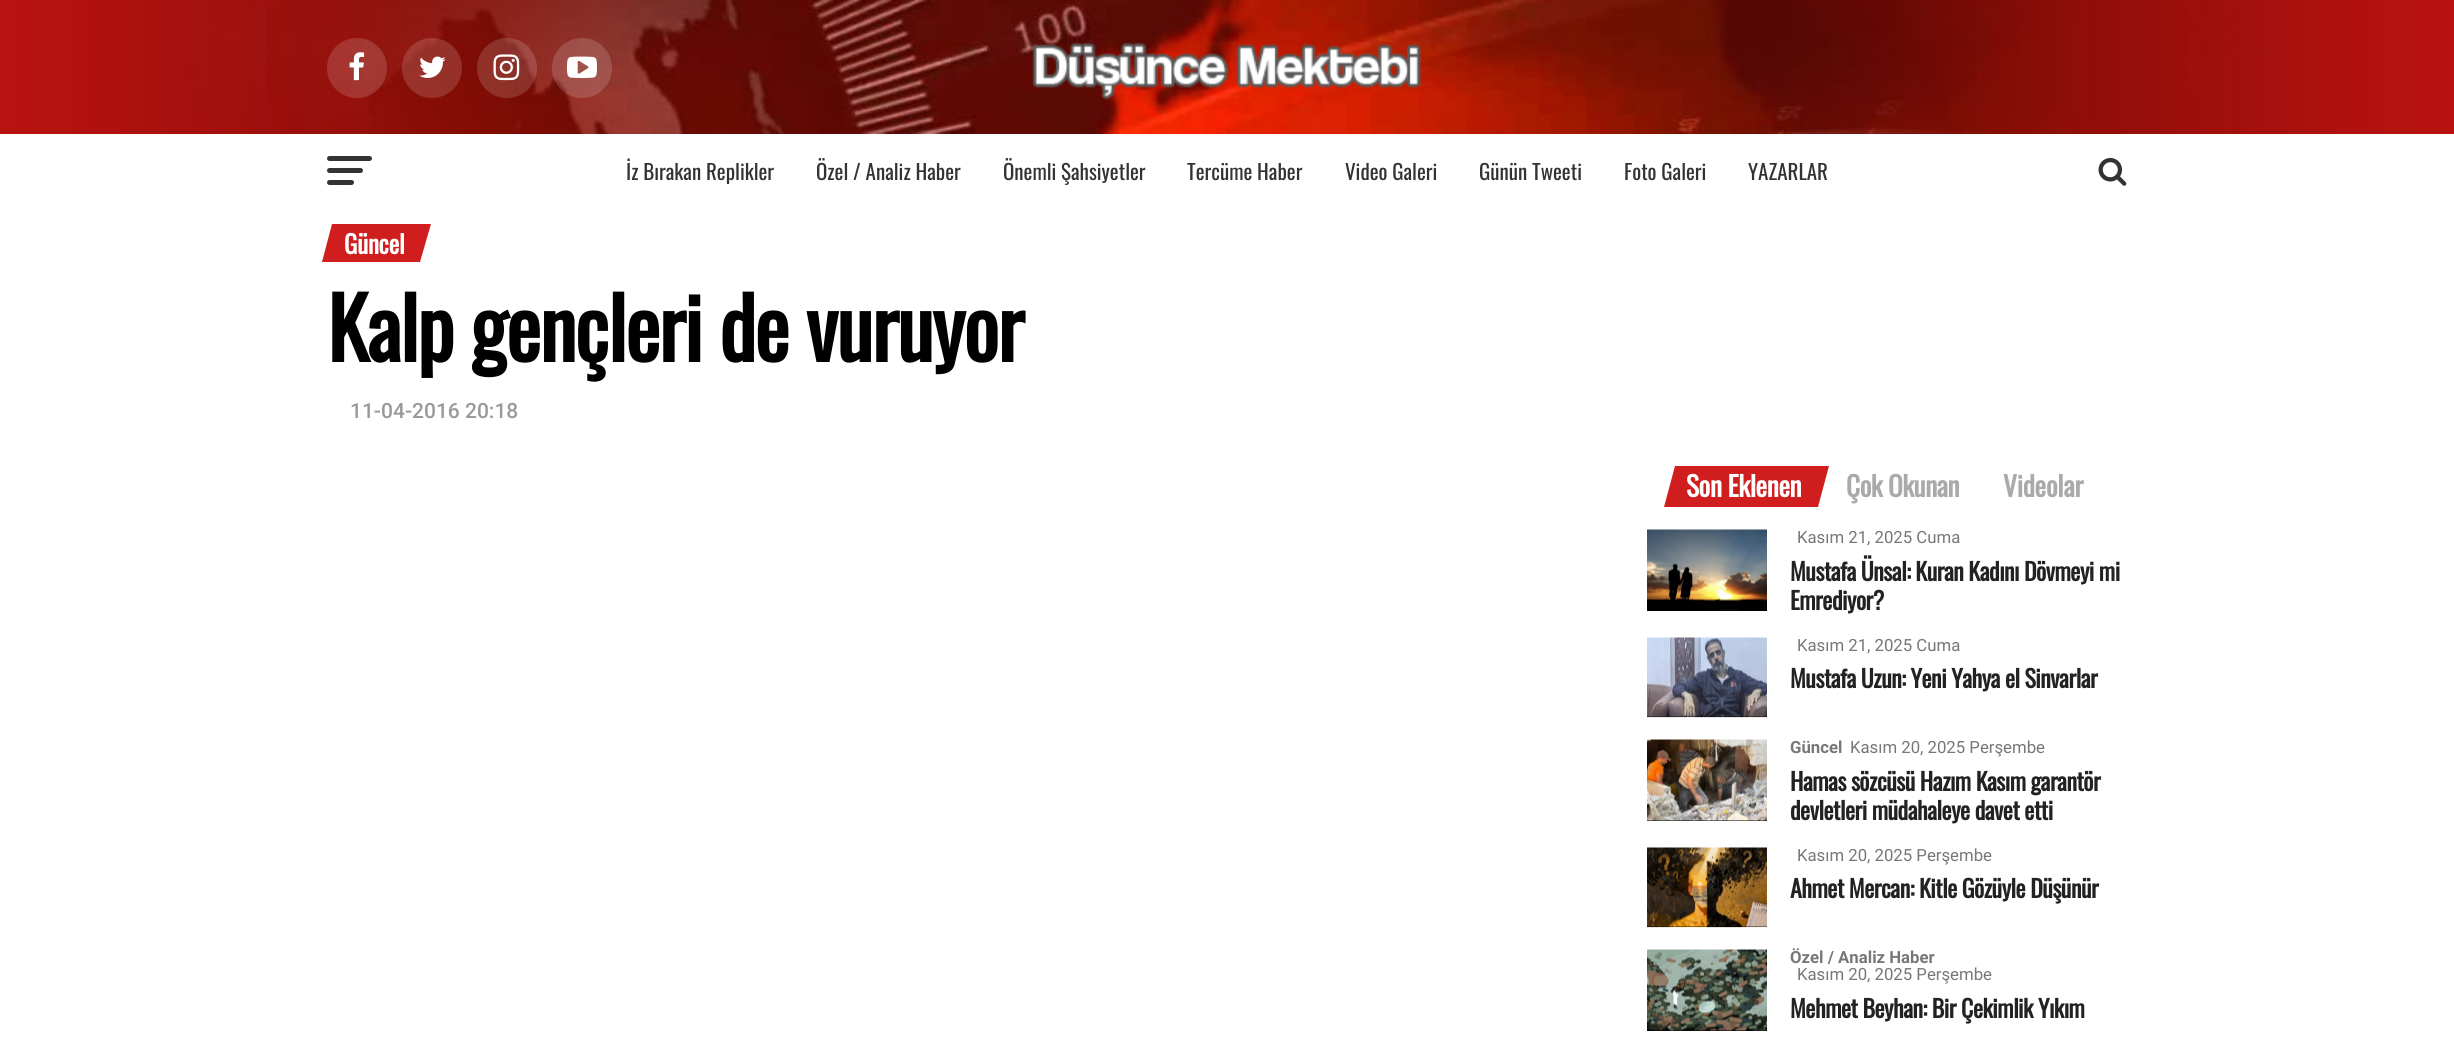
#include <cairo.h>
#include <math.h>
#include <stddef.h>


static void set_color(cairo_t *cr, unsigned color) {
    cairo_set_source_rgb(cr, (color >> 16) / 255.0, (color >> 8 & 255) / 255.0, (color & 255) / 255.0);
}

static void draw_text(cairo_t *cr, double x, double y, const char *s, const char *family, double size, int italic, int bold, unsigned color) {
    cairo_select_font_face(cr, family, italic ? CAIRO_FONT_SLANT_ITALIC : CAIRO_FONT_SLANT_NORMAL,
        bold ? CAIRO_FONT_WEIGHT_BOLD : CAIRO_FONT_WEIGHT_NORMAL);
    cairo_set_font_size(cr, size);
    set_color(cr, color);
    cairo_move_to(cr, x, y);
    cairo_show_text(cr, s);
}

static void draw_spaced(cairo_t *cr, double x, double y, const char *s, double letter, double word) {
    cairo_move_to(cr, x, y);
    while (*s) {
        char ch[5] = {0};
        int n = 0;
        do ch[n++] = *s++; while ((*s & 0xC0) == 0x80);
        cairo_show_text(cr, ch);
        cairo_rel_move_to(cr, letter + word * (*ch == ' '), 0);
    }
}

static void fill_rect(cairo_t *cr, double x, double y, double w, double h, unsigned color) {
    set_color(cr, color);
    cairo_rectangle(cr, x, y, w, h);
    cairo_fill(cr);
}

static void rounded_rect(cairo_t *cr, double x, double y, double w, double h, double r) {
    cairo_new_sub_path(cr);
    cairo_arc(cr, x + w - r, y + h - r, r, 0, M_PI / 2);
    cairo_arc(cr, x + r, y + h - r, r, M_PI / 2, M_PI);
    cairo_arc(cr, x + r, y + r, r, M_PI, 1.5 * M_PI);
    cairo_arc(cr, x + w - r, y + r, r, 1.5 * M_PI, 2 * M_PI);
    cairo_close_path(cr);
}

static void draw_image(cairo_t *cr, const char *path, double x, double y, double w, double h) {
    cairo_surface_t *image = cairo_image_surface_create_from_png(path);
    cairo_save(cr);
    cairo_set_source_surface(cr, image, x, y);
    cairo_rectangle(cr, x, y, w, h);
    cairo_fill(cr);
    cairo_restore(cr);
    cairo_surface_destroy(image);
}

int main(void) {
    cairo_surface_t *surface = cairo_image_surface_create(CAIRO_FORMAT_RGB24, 2454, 1038);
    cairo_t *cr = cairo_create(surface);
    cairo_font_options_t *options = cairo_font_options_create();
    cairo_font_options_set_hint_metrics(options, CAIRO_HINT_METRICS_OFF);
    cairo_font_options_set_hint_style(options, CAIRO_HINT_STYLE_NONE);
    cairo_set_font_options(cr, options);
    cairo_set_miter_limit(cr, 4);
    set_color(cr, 0xFFFFFF);
    cairo_paint(cr);
    draw_image(cr, "assets/img1.png", 0, 0, 2454, 134);
    cairo_set_source_rgba(cr, 1, 1, 1, 0.15);
    cairo_arc(cr, 357, 68, 30, 0, 2 * M_PI);
    cairo_fill(cr);
    draw_image(cr, "assets/img2.png", 349, 52, 16, 29);
    cairo_arc(cr, 432, 68, 30, 0, 2 * M_PI);
    cairo_fill(cr);
    draw_image(cr, "assets/img3.png", 419, 56, 27, 22);
    cairo_arc(cr, 507, 68, 30, 0, 2 * M_PI);
    cairo_fill(cr);
    draw_image(cr, "assets/img4.png", 493, 54, 27, 27);
    cairo_arc(cr, 582, 68, 30, 0, 2 * M_PI);
    cairo_fill(cr);
    draw_image(cr, "assets/img5.png", 567, 56, 30, 22);
    draw_image(cr, "assets/img6.png", 1032, 42, 389, 58);
    set_color(cr, 0x333333);
    rounded_rect(cr, 327, 156, 45, 5, 2.5);
    cairo_fill(cr);
    rounded_rect(cr, 327, 168, 36, 5, 2.5);
    cairo_fill(cr);
    rounded_rect(cr, 327, 180, 27, 5, 2.5);
    cairo_fill(cr);
    draw_text(cr, 626, 180, "İz Bırakan Replikler", "Oswald", 21, 0, 0, 0x333333);
    draw_text(cr, 816, 180, "Özel / Analiz Haber", "Oswald", 21, 0, 0, 0x333333);
    draw_text(cr, 1003, 180, "Önemli Şahsiyetler", "Oswald", 21, 0, 0, 0x333333);
    draw_text(cr, 1187, 180, "Tercüme Haber", "Oswald", 21, 0, 0, 0x333333);
    draw_text(cr, 1345, 180, "Video Galeri", "Oswald", 21, 0, 0, 0x333333);
    draw_text(cr, 1479, 180, "Günün Tweeti", "Oswald", 21, 0, 0, 0x333333);
    draw_text(cr, 1624, 180, "Foto Galeri", "Oswald", 21, 0, 0, 0x333333);
    draw_text(cr, 1748, 180, "YAZARLAR", "Oswald", 21, 0, 0, 0x333333);
    draw_image(cr, "assets/img7.png", 2098, 157, 29, 29);
    set_color(cr, 0xD01E1E);
    cairo_new_path(cr);
    cairo_move_to(cr, 332, 224);
    cairo_line_to(cr, 431, 224);
    cairo_line_to(cr, 420, 262);
    cairo_line_to(cr, 322, 262);
    cairo_close_path(cr);
    cairo_fill(cr);
    cairo_select_font_face(cr, "Oswald", CAIRO_FONT_SLANT_NORMAL, CAIRO_FONT_WEIGHT_BOLD);
    cairo_set_font_size(cr, 25);
    set_color(cr, 0xFFFFFF);
    draw_spaced(cr, 344, 254, "Güncel", -0.25, 0);
    cairo_set_font_size(cr, 84);
    set_color(cr, 0x000000);
    draw_spaced(cr, 327, 362, "Kalp gençleri de vuruyor", -1.7, 0);
    draw_text(cr, 350, 418, "11-04-2016 20:18", "Roboto Medium", 21, 0, 0, 0x999999);
    set_color(cr, 0xD01E1E);
    cairo_new_path(cr);
    cairo_move_to(cr, 1675, 466);
    cairo_line_to(cr, 1829, 466);
    cairo_line_to(cr, 1818, 507);
    cairo_line_to(cr, 1664, 507);
    cairo_close_path(cr);
    cairo_fill(cr);
    cairo_select_font_face(cr, "Oswald", CAIRO_FONT_SLANT_NORMAL, CAIRO_FONT_WEIGHT_BOLD);
    cairo_set_font_size(cr, 27.5);
    set_color(cr, 0xFFFFFF);
    draw_spaced(cr, 1686, 497, "Son Eklenen", -0.4, 0);
    set_color(cr, 0xAAAAAA);
    draw_spaced(cr, 1846, 497, "Çok Okunan", -0.5, 0);
    draw_spaced(cr, 2003, 497, "Videolar", -0.25, 0);
    fill_rect(cr, 1647, 610, 120, 1, 0x000000);
    draw_image(cr, "assets/img8.png", 1647, 529, 120, 82);
    draw_text(cr, 1797, 543, "Kasım 21, 2025 Cuma", "Roboto", 16.75, 0, 0, 0x777777);
    cairo_select_font_face(cr, "Oswald", CAIRO_FONT_SLANT_NORMAL, CAIRO_FONT_WEIGHT_BOLD);
    cairo_set_font_size(cr, 24);
    set_color(cr, 0x222222);
    draw_spaced(cr, 1790, 581, "Mustafa Ünsal: Kuran Kadını Dövmeyi mi", -0.5, 0);
    draw_spaced(cr, 1790, 610, "Emrediyor?", -0.5, 0);
    fill_rect(cr, 1647, 716, 120, 1, 0x000000);
    draw_image(cr, "assets/img9.png", 1647, 637, 120, 81);
    draw_text(cr, 1797, 651, "Kasım 21, 2025 Cuma", "Roboto", 16.75, 0, 0, 0x777777);
    cairo_select_font_face(cr, "Oswald", CAIRO_FONT_SLANT_NORMAL, CAIRO_FONT_WEIGHT_BOLD);
    cairo_set_font_size(cr, 24);
    set_color(cr, 0x222222);
    draw_spaced(cr, 1790, 688, "Mustafa Uzun: Yeni Yahya el Sinvarlar", -0.5, 0);
    fill_rect(cr, 1647, 820, 120, 1, 0x000000);
    draw_image(cr, "assets/img10.png", 1647, 739, 120, 82);
    draw_text(cr, 1790, 753, "Güncel", "Roboto", 16.75, 0, 1, 0x777777);
    draw_text(cr, 1850, 753, "Kasım 20, 2025 Perşembe", "Roboto", 16.75, 0, 0, 0x777777);
    cairo_select_font_face(cr, "Oswald", CAIRO_FONT_SLANT_NORMAL, CAIRO_FONT_WEIGHT_BOLD);
    cairo_set_font_size(cr, 24);
    set_color(cr, 0x222222);
    draw_spaced(cr, 1790, 791, "Hamas sözcüsü Hazım Kasım garantör", -0.5, 0);
    draw_spaced(cr, 1790, 820, "devletleri müdahaleye davet etti", -0.5, 0);
    fill_rect(cr, 1647, 926, 120, 1, 0x000000);
    draw_image(cr, "assets/img11.png", 1647, 847, 120, 81);
    draw_text(cr, 1797, 861, "Kasım 20, 2025 Perşembe", "Roboto", 16.75, 0, 0, 0x777777);
    cairo_select_font_face(cr, "Oswald", CAIRO_FONT_SLANT_NORMAL, CAIRO_FONT_WEIGHT_BOLD);
    cairo_set_font_size(cr, 24);
    set_color(cr, 0x222222);
    draw_spaced(cr, 1790, 898, "Ahmet Mercan: Kitle Gözüyle Düşünür", -0.5, 0);
    fill_rect(cr, 1647, 1030, 120, 1, 0x000000);
    draw_image(cr, "assets/img12.png", 1647, 949, 120, 82);
    draw_text(cr, 1790, 963, "Özel / Analiz Haber", "Roboto", 16.75, 0, 1, 0x777777);
    draw_text(cr, 1797, 980, "Kasım 20, 2025 Perşembe", "Roboto", 16.75, 0, 0, 0x777777);
    cairo_select_font_face(cr, "Oswald", CAIRO_FONT_SLANT_NORMAL, CAIRO_FONT_WEIGHT_BOLD);
    cairo_set_font_size(cr, 24);
    set_color(cr, 0x222222);
    draw_spaced(cr, 1790, 1018, "Mehmet Beyhan: Bir Çekimlik Yıkım", -0.5, 0);
    cairo_surface_write_to_png(surface, "output.png");
    cairo_font_options_destroy(options);
    cairo_destroy(cr);
    cairo_surface_destroy(surface);
    return 0;
}
